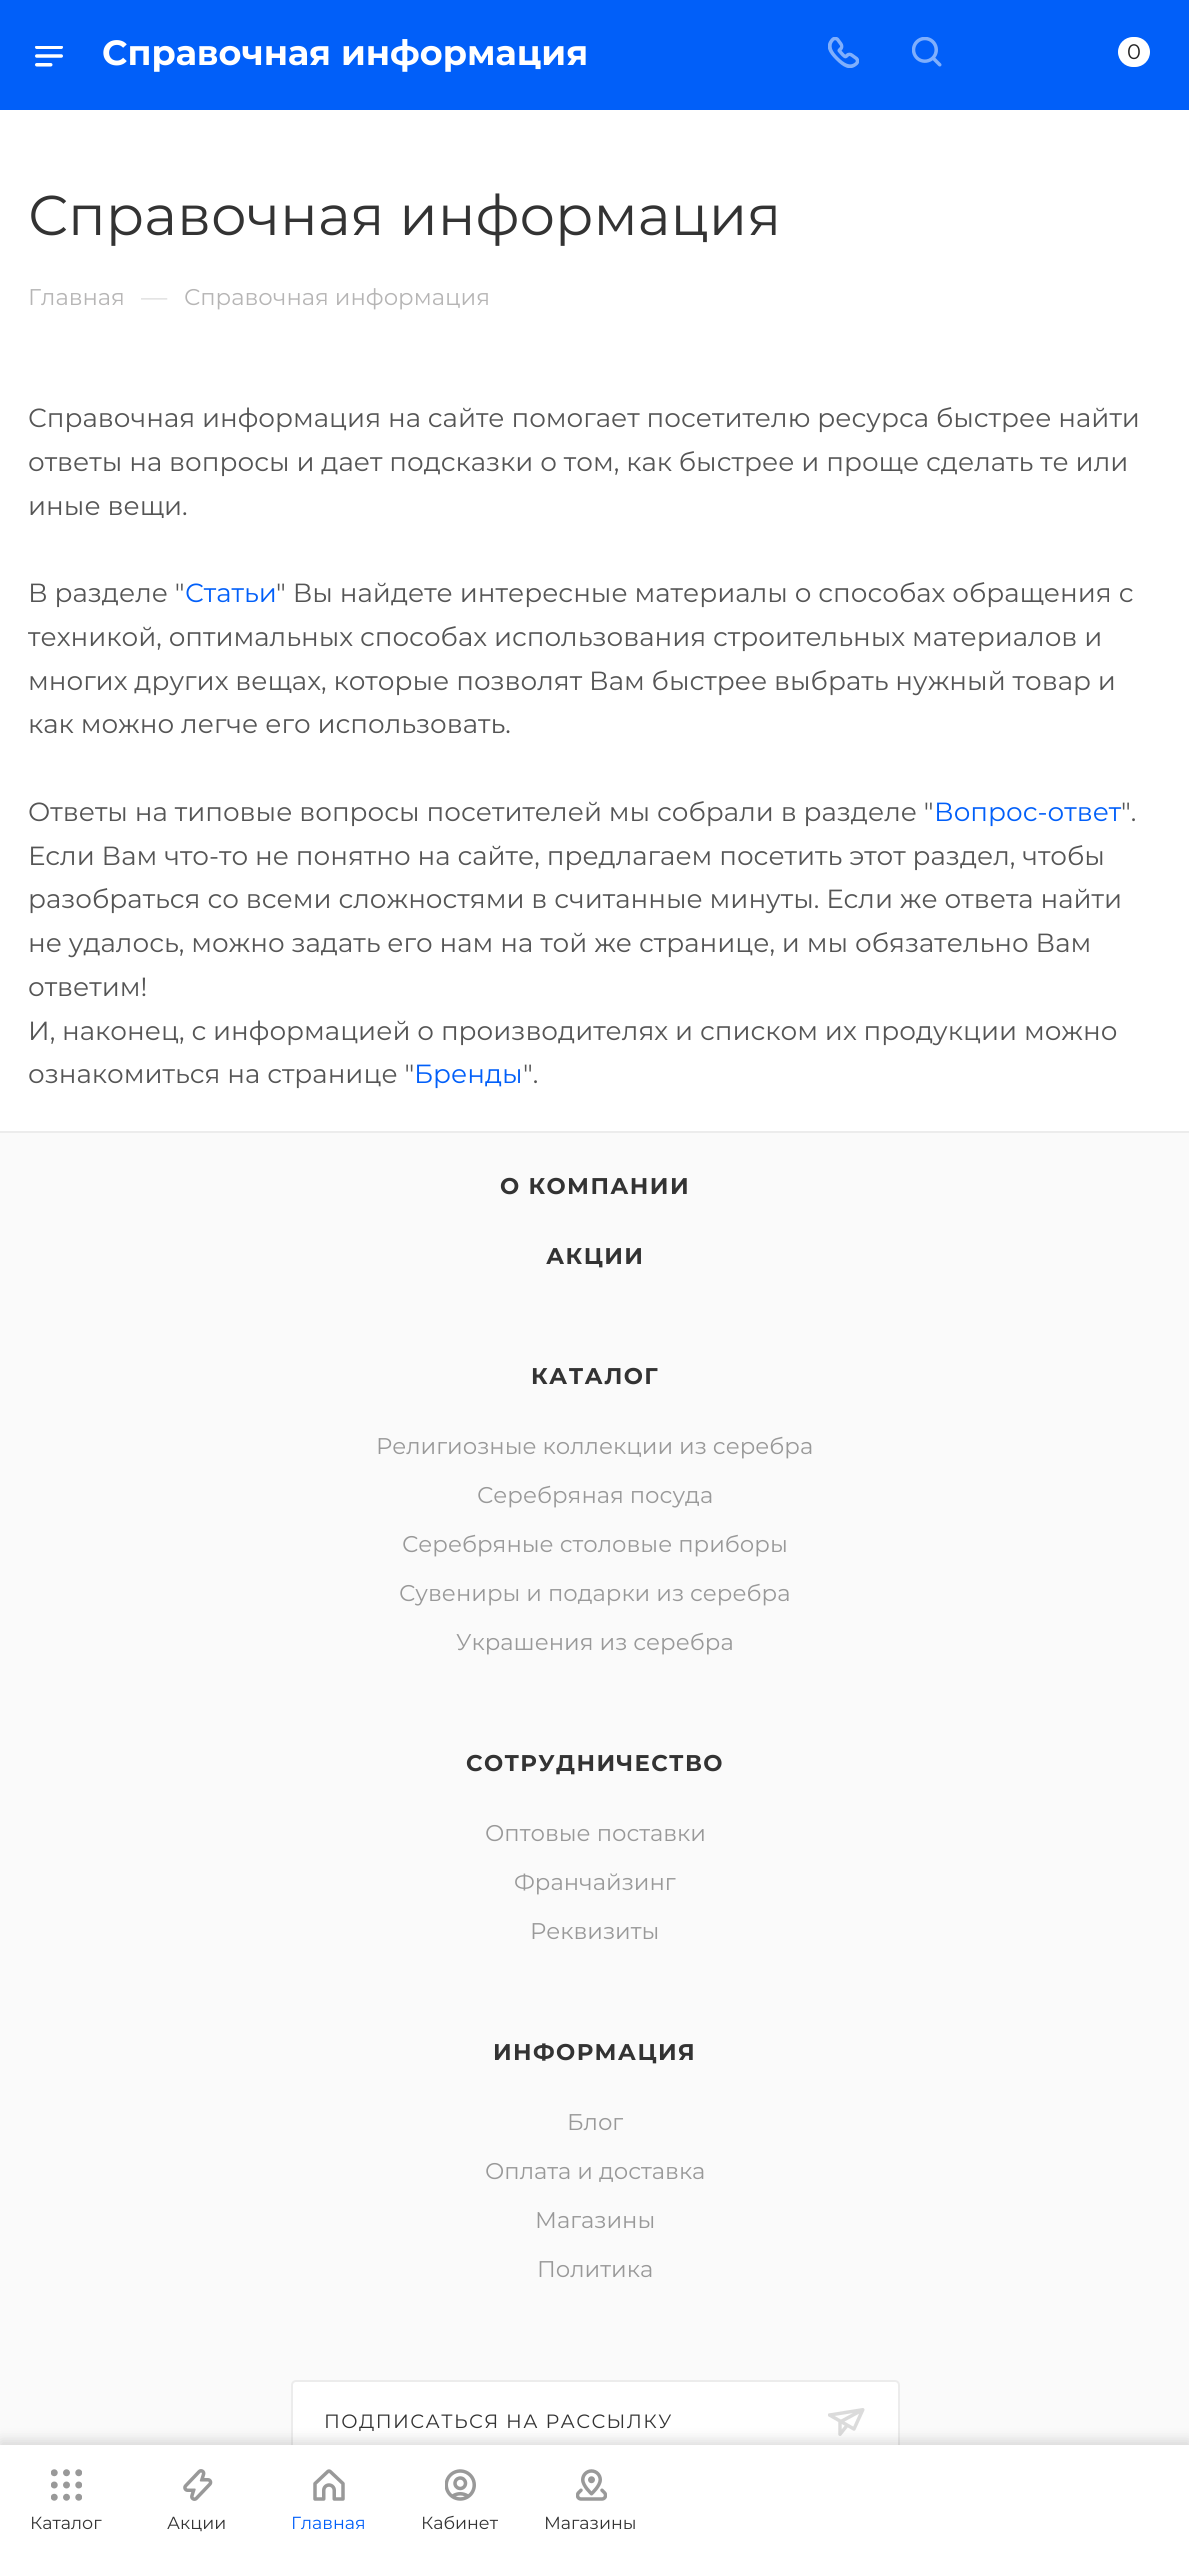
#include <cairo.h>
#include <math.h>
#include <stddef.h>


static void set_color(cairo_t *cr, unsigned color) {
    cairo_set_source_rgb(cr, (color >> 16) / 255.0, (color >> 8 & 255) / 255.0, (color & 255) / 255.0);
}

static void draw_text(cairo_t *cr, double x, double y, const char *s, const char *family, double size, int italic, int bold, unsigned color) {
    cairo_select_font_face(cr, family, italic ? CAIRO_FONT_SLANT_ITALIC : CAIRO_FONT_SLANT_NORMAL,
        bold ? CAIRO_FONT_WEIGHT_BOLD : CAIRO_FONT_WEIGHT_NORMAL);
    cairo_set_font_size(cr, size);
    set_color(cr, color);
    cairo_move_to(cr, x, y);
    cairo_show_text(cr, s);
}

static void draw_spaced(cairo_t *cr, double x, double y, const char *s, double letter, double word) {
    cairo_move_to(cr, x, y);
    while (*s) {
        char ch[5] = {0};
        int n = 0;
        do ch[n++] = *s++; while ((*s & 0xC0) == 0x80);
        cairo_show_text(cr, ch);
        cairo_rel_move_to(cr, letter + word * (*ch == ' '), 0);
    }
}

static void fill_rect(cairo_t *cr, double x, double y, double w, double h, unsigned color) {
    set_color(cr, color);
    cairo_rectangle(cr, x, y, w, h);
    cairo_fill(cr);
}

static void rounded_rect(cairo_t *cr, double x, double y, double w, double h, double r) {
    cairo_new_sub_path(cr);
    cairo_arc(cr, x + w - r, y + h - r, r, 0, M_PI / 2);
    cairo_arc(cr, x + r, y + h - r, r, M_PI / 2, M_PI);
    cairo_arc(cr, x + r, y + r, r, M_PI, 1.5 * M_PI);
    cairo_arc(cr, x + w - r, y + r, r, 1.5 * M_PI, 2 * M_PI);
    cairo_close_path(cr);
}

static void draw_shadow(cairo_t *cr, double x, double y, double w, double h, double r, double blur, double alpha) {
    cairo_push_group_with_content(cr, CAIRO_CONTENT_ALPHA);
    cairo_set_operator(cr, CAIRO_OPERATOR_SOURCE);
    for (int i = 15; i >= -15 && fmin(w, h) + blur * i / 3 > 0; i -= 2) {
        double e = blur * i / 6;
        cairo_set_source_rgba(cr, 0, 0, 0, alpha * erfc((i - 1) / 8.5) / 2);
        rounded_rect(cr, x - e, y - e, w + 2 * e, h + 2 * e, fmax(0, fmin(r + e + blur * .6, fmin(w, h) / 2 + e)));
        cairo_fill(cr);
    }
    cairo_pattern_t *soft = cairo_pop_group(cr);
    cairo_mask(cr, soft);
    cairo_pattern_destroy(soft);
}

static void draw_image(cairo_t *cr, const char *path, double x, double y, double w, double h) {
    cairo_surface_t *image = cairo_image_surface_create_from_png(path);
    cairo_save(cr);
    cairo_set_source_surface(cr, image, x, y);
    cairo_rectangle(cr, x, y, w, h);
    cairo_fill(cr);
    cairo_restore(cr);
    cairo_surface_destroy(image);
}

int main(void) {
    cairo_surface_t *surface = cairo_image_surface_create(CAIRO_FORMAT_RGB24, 1189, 2552);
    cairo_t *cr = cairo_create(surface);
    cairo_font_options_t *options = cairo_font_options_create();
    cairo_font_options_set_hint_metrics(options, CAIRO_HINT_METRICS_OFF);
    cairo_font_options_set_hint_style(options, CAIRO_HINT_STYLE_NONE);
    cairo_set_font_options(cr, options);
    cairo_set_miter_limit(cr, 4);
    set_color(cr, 0xFFFFFF);
    cairo_paint(cr);
    fill_rect(cr, 0, 0, 1189, 110, 0x015FF9);
    draw_image(cr, "assets/img1.png", 35, 46, 28, 21);
    draw_text(cr, 102, 65, "Справочная информация", "Montserrat", 35, 0, 1, 0xFFFFFF);
    draw_image(cr, "assets/img2.png", 828, 37, 31, 31);
    draw_image(cr, "assets/img3.png", 912, 37, 30, 30);
    rounded_rect(cr, 1118, 37, 32, 30, 15);
    cairo_fill(cr);
    draw_text(cr, 1127, 59, "0", "Montserrat", 21, 0, 0, 0x222222);
    draw_text(cr, 28, 235, "Справочная информация", "Montserrat", 56, 0, 0, 0x333333);
    draw_text(cr, 28, 305, "Главная", "Montserrat", 22.75, 0, 0, 0xB6B5B5);
    draw_text(cr, 141, 306, "—", "Montserrat", 26.25, 0, 0, 0xDDDDDD);
    draw_text(cr, 184, 305, "Справочная информация", "Montserrat", 22.75, 0, 0, 0xB6B5B5);
    draw_text(cr, 28, 427, "Справочная информация на сайте помогает посетителю ресурса быстрее найти", "Montserrat", 26.25, 0, 0, 0x555555);
    draw_text(cr, 28, 471, "ответы на вопросы и дает подсказки о том, как быстрее и проще сделать те или", "Montserrat", 26.25, 0, 0, 0x555555);
    draw_text(cr, 28, 515, "иные вещи.", "Montserrat", 26.25, 0, 0, 0x555555);
    draw_text(cr, 28, 602, "В разделе \"", "Montserrat", 26.25, 0, 0, 0x555555);
    draw_text(cr, 185, 602, "Статьи", "Montserrat", 26.25, 0, 0, 0x015FF9);
    draw_text(cr, 276, 602, "\" Вы найдете интересные материалы о способах обращения с", "Montserrat", 26.25, 0, 0, 0x555555);
    draw_text(cr, 28, 646, "техникой, оптимальных способах использования строительных материалов и", "Montserrat", 26.25, 0, 0, 0x555555);
    draw_text(cr, 28, 690, "многих других вещах, которые позволят Вам быстрее выбрать нужный товар и", "Montserrat", 26.25, 0, 0, 0x555555);
    draw_text(cr, 28, 733, "как можно легче его использовать.", "Montserrat", 26.25, 0, 0, 0x555555);
    draw_text(cr, 28, 821, "Ответы на типовые вопросы посетителей мы собрали в разделе \"", "Montserrat", 26.25, 0, 0, 0x555555);
    draw_text(cr, 934, 821, "Вопрос-ответ", "Montserrat", 26.25, 0, 0, 0x015FF9);
    draw_text(cr, 1121, 821, "\".", "Montserrat", 26.25, 0, 0, 0x555555);
    draw_text(cr, 28, 865, "Если Вам что-то не понятно на сайте, предлагаем посетить этот раздел, чтобы", "Montserrat", 26.25, 0, 0, 0x555555);
    draw_text(cr, 28, 908, "разобраться со всеми сложностями в считанные минуты. Если же ответа найти", "Montserrat", 26.25, 0, 0, 0x555555);
    draw_text(cr, 28, 952, "не удалось, можно задать его нам на той же странице, и мы обязательно Вам", "Montserrat", 26.25, 0, 0, 0x555555);
    draw_text(cr, 28, 996, "ответим!", "Montserrat", 26.25, 0, 0, 0x555555);
    draw_text(cr, 28, 1040, "И, наконец, с информацией о производителях и списком их продукции можно", "Montserrat", 26.25, 0, 0, 0x555555);
    draw_text(cr, 28, 1083, "ознакомиться на странице \"", "Montserrat", 26.25, 0, 0, 0x555555);
    draw_text(cr, 414, 1083, "Бренды", "Montserrat", 26.25, 0, 0, 0x015FF9);
    draw_text(cr, 523, 1083, "\".", "Montserrat", 26.25, 0, 0, 0x555555);
    fill_rect(cr, 0, 1133, 1189, 1312, 0xFAFAFA);
    fill_rect(cr, 0, 1131, 1189, 2, 0xECECEC);
    cairo_select_font_face(cr, "Montserrat", CAIRO_FONT_SLANT_NORMAL, CAIRO_FONT_WEIGHT_BOLD);
    cairo_set_font_size(cr, 22.75);
    set_color(cr, 0x333333);
    draw_spaced(cr, 500, 1194, "О КОМПАНИИ", 1.4, 0);
    draw_spaced(cr, 546, 1264, "АКЦИИ", 1.4, 0);
    draw_spaced(cr, 531, 1384, "КАТАЛОГ", 1.4, 0);
    draw_text(cr, 376, 1454, "Религиозные коллекции из серебра", "Montserrat", 22.75, 0, 0, 0x999999);
    draw_text(cr, 477, 1503, "Серебряная посуда", "Montserrat", 22.75, 0, 0, 0x999999);
    draw_text(cr, 402, 1552, "Серебряные столовые приборы", "Montserrat", 22.75, 0, 0, 0x999999);
    draw_text(cr, 399, 1601, "Сувениры и подарки из серебра", "Montserrat", 22.75, 0, 0, 0x999999);
    draw_text(cr, 456, 1650, "Украшения из серебра", "Montserrat", 22.75, 0, 0, 0x999999);
    cairo_select_font_face(cr, "Montserrat", CAIRO_FONT_SLANT_NORMAL, CAIRO_FONT_WEIGHT_BOLD);
    set_color(cr, 0x333333);
    draw_spaced(cr, 466, 1771, "СОТРУДНИЧЕСТВО", 1.4, 0);
    draw_text(cr, 485, 1841, "Оптовые поставки", "Montserrat", 22.75, 0, 0, 0x999999);
    draw_text(cr, 514, 1890, "Франчайзинг", "Montserrat", 22.75, 0, 0, 0x999999);
    draw_text(cr, 530, 1939, "Реквизиты", "Montserrat", 22.75, 0, 0, 0x999999);
    cairo_select_font_face(cr, "Montserrat", CAIRO_FONT_SLANT_NORMAL, CAIRO_FONT_WEIGHT_BOLD);
    set_color(cr, 0x333333);
    draw_spaced(cr, 493, 2060, "ИНФОРМАЦИЯ", 1.4, 0);
    draw_text(cr, 567, 2130, "Блог", "Montserrat", 22.75, 0, 0, 0x999999);
    draw_text(cr, 485, 2179, "Оплата и доставка", "Montserrat", 22.75, 0, 0, 0x999999);
    draw_text(cr, 535, 2228, "Магазины", "Montserrat", 22.75, 0, 0, 0x999999);
    draw_text(cr, 537, 2277, "Политика", "Montserrat", 22.75, 0, 0, 0x999999);
    set_color(cr, 0xFFFFFF);
    rounded_rect(cr, 292, 2381, 607, 80, 4);
    cairo_fill_preserve(cr);
    set_color(cr, 0xECECEC);
    cairo_stroke(cr);
    cairo_set_font_size(cr, 19.25);
    set_color(cr, 0x333333);
    draw_spaced(cr, 324, 2428, "ПОДПИСАТЬСЯ НА РАССЫЛКУ", 1.4, 0);
    draw_image(cr, "assets/img4.png", 828, 2408, 37, 28);
    set_color(cr, 0x000000);
    draw_shadow(cr, 0, 2441, 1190, 109, 0, 7, 0.15);
    fill_rect(cr, 0, 2445, 1189, 107, 0xFFFFFF);
    draw_image(cr, "assets/img5.png", 51, 2469, 31, 32);
    draw_text(cr, 30, 2529, "Каталог", "Montserrat", 17.5, 0, 0, 0x333333);
    draw_image(cr, "assets/img6.png", 183, 2469, 30, 32);
    draw_text(cr, 167, 2529, "Акции", "Montserrat", 17.5, 0, 0, 0x333333);
    draw_image(cr, "assets/img7.png", 313, 2469, 32, 32);
    draw_text(cr, 291, 2529, "Главная", "Montserrat", 17.5, 0, 0, 0x015FF9);
    draw_image(cr, "assets/img8.png", 445, 2469, 31, 32);
    draw_text(cr, 421, 2529, "Кабинет", "Montserrat", 17.5, 0, 0, 0x333333);
    draw_image(cr, "assets/img9.png", 576, 2469, 31, 32);
    draw_text(cr, 544, 2529, "Магазины", "Montserrat", 17.5, 0, 0, 0x333333);
    cairo_surface_write_to_png(surface, "output.png");
    cairo_font_options_destroy(options);
    cairo_destroy(cr);
    cairo_surface_destroy(surface);
    return 0;
}
